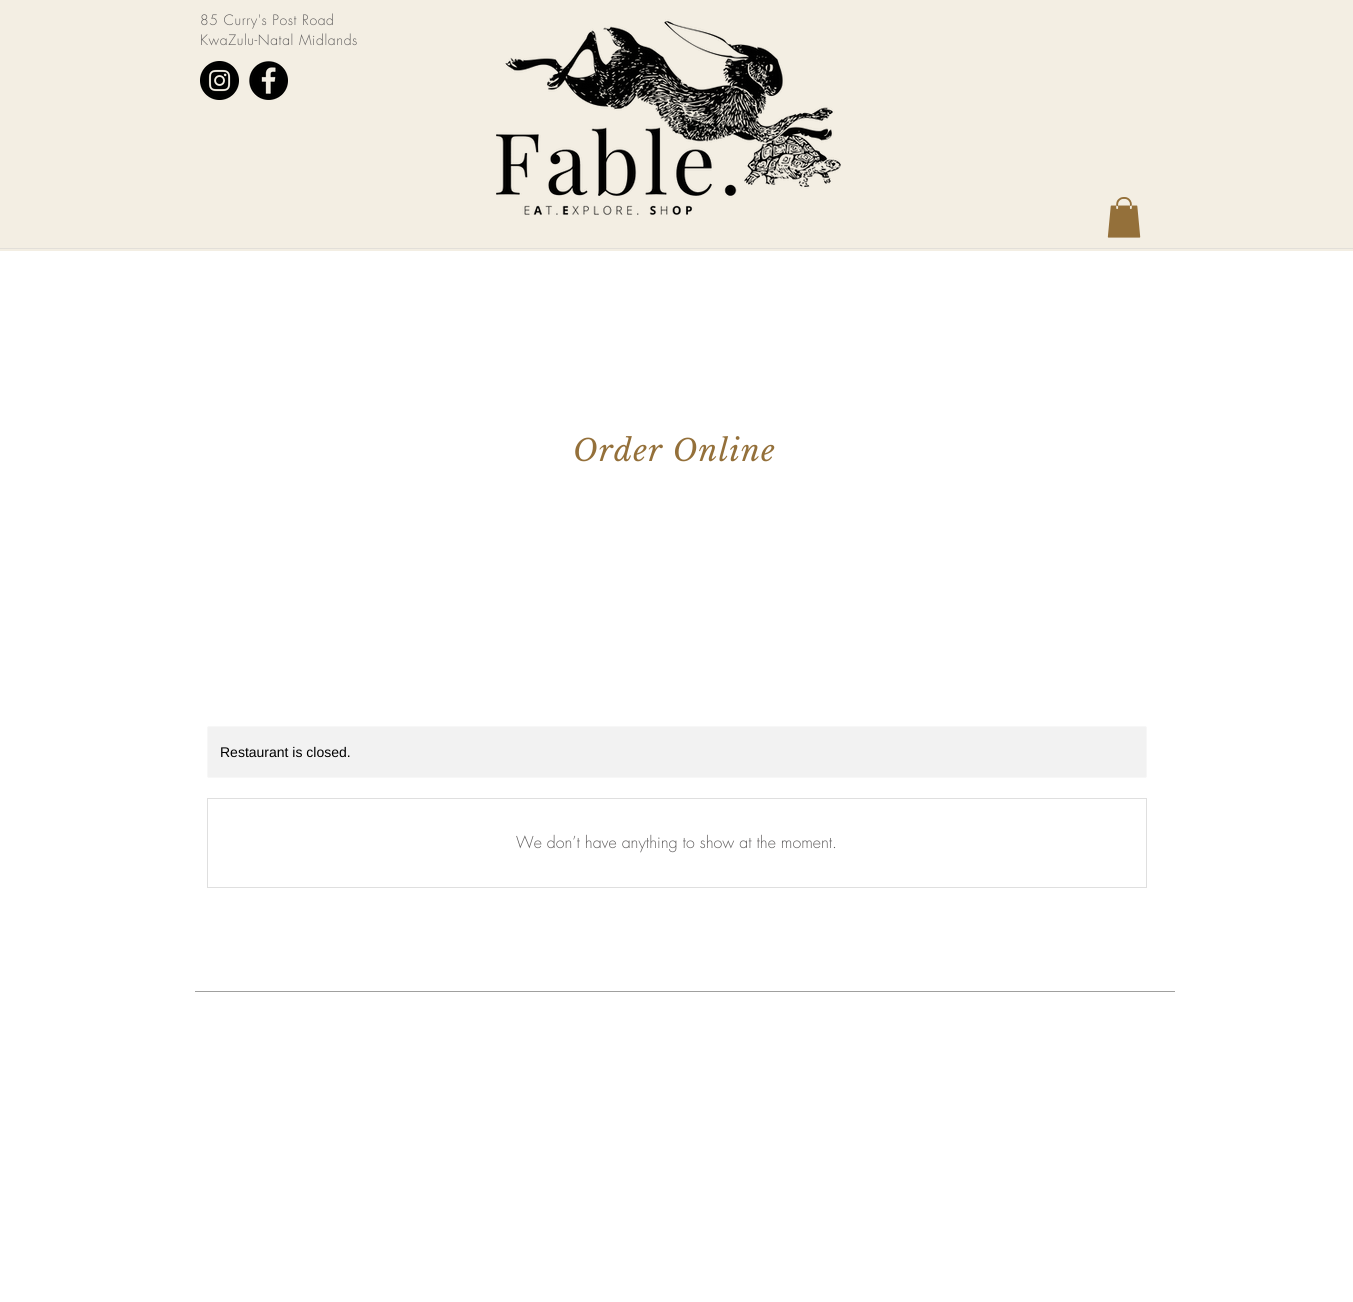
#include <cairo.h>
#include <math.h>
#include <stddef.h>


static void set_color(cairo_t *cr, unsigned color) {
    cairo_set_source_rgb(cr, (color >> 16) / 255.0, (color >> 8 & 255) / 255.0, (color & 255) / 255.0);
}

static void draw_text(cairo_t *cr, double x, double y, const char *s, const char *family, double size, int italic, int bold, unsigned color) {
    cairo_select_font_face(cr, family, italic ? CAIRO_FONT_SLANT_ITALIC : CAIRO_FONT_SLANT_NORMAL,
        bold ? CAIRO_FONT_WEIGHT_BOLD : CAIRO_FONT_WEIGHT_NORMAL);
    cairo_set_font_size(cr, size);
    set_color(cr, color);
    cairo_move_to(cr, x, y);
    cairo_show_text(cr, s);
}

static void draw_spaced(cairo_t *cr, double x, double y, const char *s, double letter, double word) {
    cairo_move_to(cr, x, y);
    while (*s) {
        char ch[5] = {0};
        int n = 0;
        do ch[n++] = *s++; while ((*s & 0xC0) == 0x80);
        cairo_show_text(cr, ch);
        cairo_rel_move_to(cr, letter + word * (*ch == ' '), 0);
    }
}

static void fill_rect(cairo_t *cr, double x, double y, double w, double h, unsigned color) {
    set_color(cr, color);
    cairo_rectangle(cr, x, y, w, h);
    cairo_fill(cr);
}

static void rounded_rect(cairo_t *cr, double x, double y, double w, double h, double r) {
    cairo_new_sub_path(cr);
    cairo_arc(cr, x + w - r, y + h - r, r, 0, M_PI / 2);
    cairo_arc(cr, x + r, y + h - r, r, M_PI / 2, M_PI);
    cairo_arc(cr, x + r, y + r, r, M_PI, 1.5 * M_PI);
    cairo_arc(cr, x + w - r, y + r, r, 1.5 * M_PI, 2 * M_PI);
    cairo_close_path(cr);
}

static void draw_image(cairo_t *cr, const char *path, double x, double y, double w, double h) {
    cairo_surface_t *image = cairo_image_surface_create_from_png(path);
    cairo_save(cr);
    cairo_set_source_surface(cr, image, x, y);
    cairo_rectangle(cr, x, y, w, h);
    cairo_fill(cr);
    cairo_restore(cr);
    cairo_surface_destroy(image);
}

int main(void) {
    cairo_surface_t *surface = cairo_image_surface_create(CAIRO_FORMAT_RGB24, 1353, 1302);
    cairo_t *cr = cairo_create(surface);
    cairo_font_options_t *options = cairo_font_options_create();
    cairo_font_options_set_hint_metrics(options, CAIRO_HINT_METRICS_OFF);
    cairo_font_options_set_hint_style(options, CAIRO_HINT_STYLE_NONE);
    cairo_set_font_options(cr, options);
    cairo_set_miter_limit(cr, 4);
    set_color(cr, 0xFFFFFF);
    cairo_paint(cr);
    fill_rect(cr, 0, 0, 1353, 251, 0xF3EEE3);
    cairo_select_font_face(cr, "futura Light", CAIRO_FONT_SLANT_NORMAL, CAIRO_FONT_WEIGHT_NORMAL);
    cairo_set_font_size(cr, 14);
    set_color(cr, 0x605E5E);
    draw_spaced(cr, 200, 25, "85 Curry's Post Road", 0.6, 0);
    draw_spaced(cr, 200, 45, "KwaZulu-Natal Midlands", 0.6, 0);
    draw_image(cr, "assets/img1.png", 496, 19, 345, 196);
    draw_image(cr, "assets/img2.png", 200, 61, 39, 39);
    draw_image(cr, "assets/img3.png", 249, 61, 39, 39);
    draw_image(cr, "assets/img4.png", 1107, 197, 34, 41);
    fill_rect(cr, 0, 248, 1353, 1, 0xE2DFD9);
    cairo_select_font_face(cr, "Libre Baskerville", CAIRO_FONT_SLANT_ITALIC, CAIRO_FONT_WEIGHT_NORMAL);
    cairo_set_font_size(cr, 30);
    set_color(cr, 0x94703A);
    draw_spaced(cr, 573, 461, "Order Online", 1.25, 0);
    set_color(cr, 0xF2F2F2);
    rounded_rect(cr, 207.5, 726.5, 939, 51, 1.5);
    cairo_fill_preserve(cr);
    set_color(cr, 0xF7F7F7);
    cairo_set_line_width(cr, 1);
    cairo_stroke(cr);
    draw_text(cr, 220, 757, "Restaurant is closed.", "Liberation Sans", 14, 0, 0, 0x000000);
    cairo_rectangle(cr, 207.5, 798.5, 939, 89);
    set_color(cr, 0xDFDFDF);
    cairo_stroke(cr);
    draw_text(cr, 516, 848, "We don’t have anything to show at the moment.", "futura Light", 16, 0, 0, 0x605E5E);
    fill_rect(cr, 195, 991, 980, 1, 0xA0A09F);
    cairo_surface_write_to_png(surface, "output.png");
    cairo_font_options_destroy(options);
    cairo_destroy(cr);
    cairo_surface_destroy(surface);
    return 0;
}
